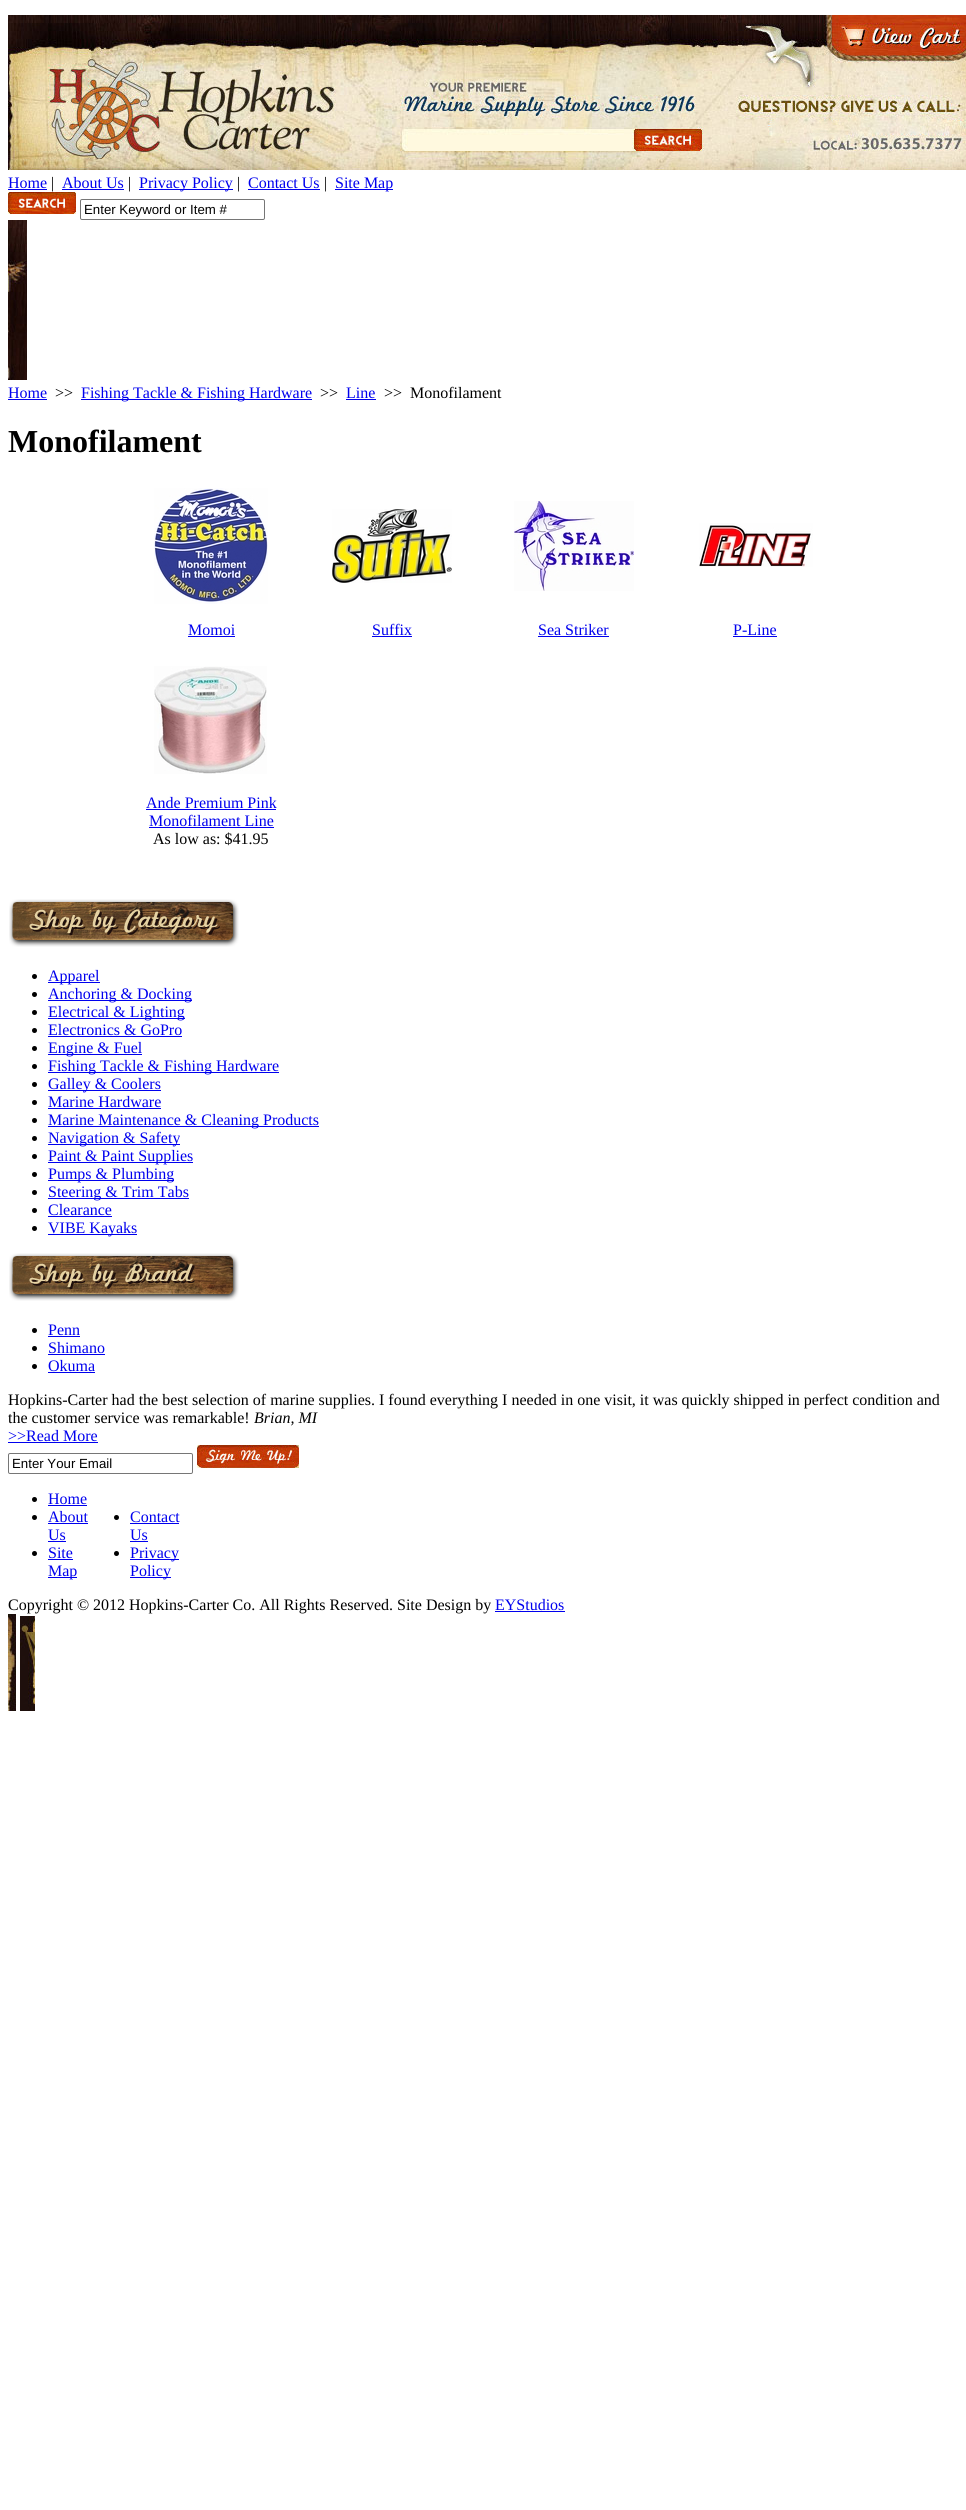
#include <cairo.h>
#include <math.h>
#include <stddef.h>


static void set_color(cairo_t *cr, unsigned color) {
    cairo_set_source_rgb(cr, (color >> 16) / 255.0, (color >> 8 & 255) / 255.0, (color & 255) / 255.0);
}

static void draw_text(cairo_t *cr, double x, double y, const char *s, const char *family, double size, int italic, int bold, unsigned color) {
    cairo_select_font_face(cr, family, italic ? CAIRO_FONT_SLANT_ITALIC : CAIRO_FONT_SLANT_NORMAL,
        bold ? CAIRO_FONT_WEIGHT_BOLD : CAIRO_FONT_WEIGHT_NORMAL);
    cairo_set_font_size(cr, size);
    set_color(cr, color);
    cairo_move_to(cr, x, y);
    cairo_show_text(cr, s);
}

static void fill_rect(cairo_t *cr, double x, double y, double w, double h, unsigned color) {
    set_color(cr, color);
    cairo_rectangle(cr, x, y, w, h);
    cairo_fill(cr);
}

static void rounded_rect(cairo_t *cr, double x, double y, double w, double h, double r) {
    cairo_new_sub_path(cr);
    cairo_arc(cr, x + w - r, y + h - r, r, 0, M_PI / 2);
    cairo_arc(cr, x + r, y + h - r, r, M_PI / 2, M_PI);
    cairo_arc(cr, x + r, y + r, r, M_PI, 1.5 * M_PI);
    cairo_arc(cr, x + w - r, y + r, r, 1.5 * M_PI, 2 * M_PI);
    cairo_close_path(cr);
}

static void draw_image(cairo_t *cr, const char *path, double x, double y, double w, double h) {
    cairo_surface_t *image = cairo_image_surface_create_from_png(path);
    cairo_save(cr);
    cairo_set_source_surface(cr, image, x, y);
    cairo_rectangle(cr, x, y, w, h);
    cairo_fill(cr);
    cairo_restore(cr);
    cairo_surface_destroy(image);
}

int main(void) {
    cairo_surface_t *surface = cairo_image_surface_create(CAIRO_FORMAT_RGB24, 966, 2510);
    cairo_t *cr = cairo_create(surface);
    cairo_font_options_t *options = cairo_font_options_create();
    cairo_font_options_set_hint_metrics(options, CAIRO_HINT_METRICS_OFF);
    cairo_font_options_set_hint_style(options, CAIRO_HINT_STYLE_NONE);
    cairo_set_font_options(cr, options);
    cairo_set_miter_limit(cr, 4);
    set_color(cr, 0xFFFFFF);
    cairo_paint(cr);
    draw_image(cr, "assets/img1.png", 8, 15, 958, 155);
    draw_text(cr, 8, 188, "Home", "Liberation Serif", 16, 0, 0, 0x0000EE);
    fill_rect(cr, 8, 189, 39, 1, 0x0000EE);
    draw_text(cr, 51, 188, "|", "Liberation Serif", 16, 0, 0, 0x000000);
    draw_text(cr, 62, 188, "About Us", "Liberation Serif", 16, 0, 0, 0x0000EE);
    fill_rect(cr, 62, 189, 62, 1, 0x0000EE);
    draw_text(cr, 128, 188, "|", "Liberation Serif", 16, 0, 0, 0x000000);
    fill_rect(cr, 139, 189, 94, 1, 0x0000EE);
    draw_text(cr, 139, 188, "Privacy Policy", "Liberation Serif", 16, 0, 0, 0x0000EE);
    draw_text(cr, 237, 188, "|", "Liberation Serif", 16, 0, 0, 0x000000);
    draw_text(cr, 248, 188, "Contact Us", "Liberation Serif", 16, 0, 0, 0x0000EE);
    fill_rect(cr, 248, 189, 72, 1, 0x0000EE);
    draw_text(cr, 324, 188, "|", "Liberation Serif", 16, 0, 0, 0x000000);
    fill_rect(cr, 335, 189, 58, 1, 0x0000EE);
    draw_text(cr, 335, 188, "Site Map", "Liberation Serif", 16, 0, 0, 0x0000EE);
    draw_image(cr, "assets/img2.png", 8, 192, 68, 22);
    rounded_rect(cr, 80.5, 199.5, 184, 20, 1.5);
    set_color(cr, 0x767676);
    cairo_set_line_width(cr, 1);
    cairo_stroke(cr);
    draw_text(cr, 84, 214, "Enter Keyword or Item #", "Liberation Sans", 13.25, 0, 0, 0x000000);
    draw_image(cr, "assets/img3.png", 8, 220, 19, 160);
    draw_text(cr, 8, 398, "Home", "Liberation Serif", 16, 0, 0, 0x0000EE);
    fill_rect(cr, 8, 399, 39, 1, 0x0000EE);
    draw_text(cr, 55, 398, ">>", "Liberation Serif", 16, 0, 0, 0x000000);
    fill_rect(cr, 81, 399, 231, 1, 0x0000EE);
    draw_text(cr, 81, 398, "Fishing Tackle & Fishing Hardware", "Liberation Serif", 16, 0, 0, 0x0000EE);
    draw_text(cr, 320, 398, ">>", "Liberation Serif", 16, 0, 0, 0x000000);
    draw_text(cr, 346, 398, "Line", "Liberation Serif", 16, 0, 0, 0x0000EE);
    fill_rect(cr, 346, 399, 30, 1, 0x0000EE);
    draw_text(cr, 384, 398, ">>", "Liberation Serif", 16, 0, 0, 0x000000);
    draw_text(cr, 410, 398, "Monofilament", "Liberation Serif", 16, 0, 0, 0x000000);
    draw_text(cr, 8, 452, "Monofilament", "Liberation Serif", 32, 0, 1, 0x000000);
    draw_image(cr, "assets/img4.png", 154, 488, 114, 116);
    draw_image(cr, "assets/img5.png", 332, 509, 120, 74);
    draw_image(cr, "assets/img6.png", 514, 501, 120, 90);
    draw_image(cr, "assets/img7.png", 699, 523, 114, 44);
    draw_text(cr, 188, 635, "Momoi", "Liberation Serif", 16, 0, 0, 0x0000EE);
    fill_rect(cr, 188, 636, 47, 1, 0x0000EE);
    draw_text(cr, 372, 635, "Suffix", "Liberation Serif", 16, 0, 0, 0x0000EE);
    fill_rect(cr, 372, 636, 40, 1, 0x0000EE);
    draw_text(cr, 538, 635, "Sea Striker", "Liberation Serif", 16, 0, 0, 0x0000EE);
    fill_rect(cr, 538, 636, 71, 1, 0x0000EE);
    draw_text(cr, 733, 635, "P-Line", "Liberation Serif", 16, 0, 0, 0x0000EE);
    fill_rect(cr, 733, 636, 44, 1, 0x0000EE);
    draw_image(cr, "assets/img8.png", 154, 666, 113, 108);
    draw_text(cr, 146, 808, "Ande Premium Pink", "Liberation Serif", 16, 0, 0, 0x0000EE);
    fill_rect(cr, 146, 809, 130, 1, 0x0000EE);
    draw_text(cr, 149, 826, "Monofilament Line", "Liberation Serif", 16, 0, 0, 0x0000EE);
    fill_rect(cr, 149, 827, 125, 1, 0x0000EE);
    draw_text(cr, 153, 844, "As low as: $41.95", "Liberation Serif", 16, 0, 0, 0x000000);
    draw_image(cr, "assets/img9.png", 9, 899, 230, 48);
    cairo_arc(cr, 34.5, 976.5, 2.5, 0, 2 * M_PI);
    cairo_fill(cr);
    fill_rect(cr, 48, 982, 52, 1, 0x0000EE);
    draw_text(cr, 48, 981, "Apparel", "Liberation Serif", 16, 0, 0, 0x0000EE);
    set_color(cr, 0x000000);
    cairo_new_path(cr);
    cairo_arc(cr, 34.5, 994.5, 2.5, 0, 2 * M_PI);
    cairo_fill(cr);
    fill_rect(cr, 48, 1000, 144, 1, 0x0000EE);
    draw_text(cr, 48, 999, "Anchoring & Docking", "Liberation Serif", 16, 0, 0, 0x0000EE);
    set_color(cr, 0x000000);
    cairo_new_path(cr);
    cairo_arc(cr, 34.5, 1012.5, 2.5, 0, 2 * M_PI);
    cairo_fill(cr);
    fill_rect(cr, 48, 1018, 137, 1, 0x0000EE);
    draw_text(cr, 48, 1017, "Electrical & Lighting", "Liberation Serif", 16, 0, 0, 0x0000EE);
    set_color(cr, 0x000000);
    cairo_new_path(cr);
    cairo_arc(cr, 34.5, 1030.5, 2.5, 0, 2 * M_PI);
    cairo_fill(cr);
    draw_text(cr, 48, 1035, "Electronics & GoPro", "Liberation Serif", 16, 0, 0, 0x0000EE);
    fill_rect(cr, 48, 1036, 134, 1, 0x0000EE);
    set_color(cr, 0x000000);
    cairo_new_path(cr);
    cairo_arc(cr, 34.5, 1048.5, 2.5, 0, 2 * M_PI);
    cairo_fill(cr);
    fill_rect(cr, 48, 1054, 94, 1, 0x0000EE);
    draw_text(cr, 48, 1053, "Engine & Fuel", "Liberation Serif", 16, 0, 0, 0x0000EE);
    set_color(cr, 0x000000);
    cairo_new_path(cr);
    cairo_arc(cr, 34.5, 1066.5, 2.5, 0, 2 * M_PI);
    cairo_fill(cr);
    fill_rect(cr, 48, 1072, 231, 1, 0x0000EE);
    draw_text(cr, 48, 1071, "Fishing Tackle & Fishing Hardware", "Liberation Serif", 16, 0, 0, 0x0000EE);
    set_color(cr, 0x000000);
    cairo_new_path(cr);
    cairo_arc(cr, 34.5, 1084.5, 2.5, 0, 2 * M_PI);
    cairo_fill(cr);
    fill_rect(cr, 48, 1090, 113, 1, 0x0000EE);
    draw_text(cr, 48, 1089, "Galley & Coolers", "Liberation Serif", 16, 0, 0, 0x0000EE);
    set_color(cr, 0x000000);
    cairo_new_path(cr);
    cairo_arc(cr, 34.5, 1102.5, 2.5, 0, 2 * M_PI);
    cairo_fill(cr);
    draw_text(cr, 48, 1107, "Marine Hardware", "Liberation Serif", 16, 0, 0, 0x0000EE);
    fill_rect(cr, 48, 1108, 113, 1, 0x0000EE);
    set_color(cr, 0x000000);
    cairo_new_path(cr);
    cairo_arc(cr, 34.5, 1120.5, 2.5, 0, 2 * M_PI);
    cairo_fill(cr);
    fill_rect(cr, 48, 1126, 271, 1, 0x0000EE);
    draw_text(cr, 48, 1125, "Marine Maintenance & Cleaning Products", "Liberation Serif", 16, 0, 0, 0x0000EE);
    set_color(cr, 0x000000);
    cairo_new_path(cr);
    cairo_arc(cr, 34.5, 1138.5, 2.5, 0, 2 * M_PI);
    cairo_fill(cr);
    fill_rect(cr, 48, 1144, 132, 1, 0x0000EE);
    draw_text(cr, 48, 1143, "Navigation & Safety", "Liberation Serif", 16, 0, 0, 0x0000EE);
    set_color(cr, 0x000000);
    cairo_new_path(cr);
    cairo_arc(cr, 34.5, 1156.5, 2.5, 0, 2 * M_PI);
    cairo_fill(cr);
    fill_rect(cr, 48, 1162, 145, 1, 0x0000EE);
    draw_text(cr, 48, 1161, "Paint & Paint Supplies", "Liberation Serif", 16, 0, 0, 0x0000EE);
    set_color(cr, 0x000000);
    cairo_new_path(cr);
    cairo_arc(cr, 34.5, 1174.5, 2.5, 0, 2 * M_PI);
    cairo_fill(cr);
    fill_rect(cr, 48, 1180, 126, 1, 0x0000EE);
    draw_text(cr, 48, 1179, "Pumps & Plumbing", "Liberation Serif", 16, 0, 0, 0x0000EE);
    set_color(cr, 0x000000);
    cairo_new_path(cr);
    cairo_arc(cr, 34.5, 1192.5, 2.5, 0, 2 * M_PI);
    cairo_fill(cr);
    fill_rect(cr, 48, 1198, 141, 1, 0x0000EE);
    draw_text(cr, 48, 1197, "Steering & Trim Tabs", "Liberation Serif", 16, 0, 0, 0x0000EE);
    set_color(cr, 0x000000);
    cairo_new_path(cr);
    cairo_arc(cr, 34.5, 1210.5, 2.5, 0, 2 * M_PI);
    cairo_fill(cr);
    draw_text(cr, 48, 1215, "Clearance", "Liberation Serif", 16, 0, 0, 0x0000EE);
    fill_rect(cr, 48, 1216, 64, 1, 0x0000EE);
    set_color(cr, 0x000000);
    cairo_new_path(cr);
    cairo_arc(cr, 34.5, 1228.5, 2.5, 0, 2 * M_PI);
    cairo_fill(cr);
    fill_rect(cr, 48, 1234, 89, 1, 0x0000EE);
    draw_text(cr, 48, 1233, "VIBE Kayaks", "Liberation Serif", 16, 0, 0, 0x0000EE);
    draw_image(cr, "assets/img10.png", 9, 1253, 230, 48);
    set_color(cr, 0x000000);
    cairo_arc(cr, 34.5, 1330.5, 2.5, 0, 2 * M_PI);
    cairo_fill(cr);
    draw_text(cr, 48, 1335, "Penn", "Liberation Serif", 16, 0, 0, 0x0000EE);
    fill_rect(cr, 48, 1336, 32, 1, 0x0000EE);
    set_color(cr, 0x000000);
    cairo_new_path(cr);
    cairo_arc(cr, 34.5, 1348.5, 2.5, 0, 2 * M_PI);
    cairo_fill(cr);
    draw_text(cr, 48, 1353, "Shimano", "Liberation Serif", 16, 0, 0, 0x0000EE);
    fill_rect(cr, 48, 1354, 57, 1, 0x0000EE);
    set_color(cr, 0x000000);
    cairo_new_path(cr);
    cairo_arc(cr, 34.5, 1366.5, 2.5, 0, 2 * M_PI);
    cairo_fill(cr);
    draw_text(cr, 48, 1371, "Okuma", "Liberation Serif", 16, 0, 0, 0x0000EE);
    fill_rect(cr, 48, 1372, 47, 1, 0x0000EE);
    draw_text(cr, 8, 1405, "Hopkins-Carter had the best selection of marine supplies. I found everything I needed in one visit, it was quickly shipped in perfect condition and", "Liberation Serif", 16, 0, 0, 0x000000);
    draw_text(cr, 8, 1423, "the customer service was remarkable!", "Liberation Serif", 16, 0, 0, 0x000000);
    draw_text(cr, 254, 1423, "Brian, MI", "Liberation Serif", 16, 1, 0, 0x000000);
    draw_text(cr, 8, 1441, ">>Read More", "Liberation Serif", 16, 0, 0, 0x0000EE);
    fill_rect(cr, 8, 1442, 90, 1, 0x0000EE);
    rounded_rect(cr, 8.5, 1453.5, 184, 20, 1.5);
    set_color(cr, 0x767676);
    cairo_stroke(cr);
    draw_text(cr, 12, 1468, "Enter Your Email", "Liberation Sans", 13.25, 0, 0, 0x000000);
    draw_image(cr, "assets/img11.png", 197, 1445, 102, 23);
    cairo_arc(cr, 34.5, 1499.5, 2.5, 0, 2 * M_PI);
    cairo_fill(cr);
    draw_text(cr, 48, 1504, "Home", "Liberation Serif", 16, 0, 0, 0x0000EE);
    fill_rect(cr, 48, 1505, 39, 1, 0x0000EE);
    set_color(cr, 0x000000);
    cairo_new_path(cr);
    cairo_arc(cr, 34.5, 1517.5, 2.5, 0, 2 * M_PI);
    cairo_fill(cr);
    draw_text(cr, 48, 1522, "About", "Liberation Serif", 16, 0, 0, 0x0000EE);
    fill_rect(cr, 48, 1523, 40, 1, 0x0000EE);
    draw_text(cr, 48, 1540, "Us", "Liberation Serif", 16, 0, 0, 0x0000EE);
    fill_rect(cr, 48, 1541, 18, 1, 0x0000EE);
    set_color(cr, 0x000000);
    cairo_new_path(cr);
    cairo_arc(cr, 34.5, 1553.5, 2.5, 0, 2 * M_PI);
    cairo_fill(cr);
    draw_text(cr, 48, 1558, "Site", "Liberation Serif", 16, 0, 0, 0x0000EE);
    fill_rect(cr, 48, 1559, 25, 1, 0x0000EE);
    fill_rect(cr, 48, 1577, 29, 1, 0x0000EE);
    draw_text(cr, 48, 1576, "Map", "Liberation Serif", 16, 0, 0, 0x0000EE);
    set_color(cr, 0x000000);
    cairo_new_path(cr);
    cairo_arc(cr, 116.5, 1517.5, 2.5, 0, 2 * M_PI);
    cairo_fill(cr);
    draw_text(cr, 130, 1522, "Contact", "Liberation Serif", 16, 0, 0, 0x0000EE);
    fill_rect(cr, 130, 1523, 49, 1, 0x0000EE);
    draw_text(cr, 130, 1540, "Us", "Liberation Serif", 16, 0, 0, 0x0000EE);
    fill_rect(cr, 130, 1541, 18, 1, 0x0000EE);
    set_color(cr, 0x000000);
    cairo_new_path(cr);
    cairo_arc(cr, 116.5, 1553.5, 2.5, 0, 2 * M_PI);
    cairo_fill(cr);
    fill_rect(cr, 130, 1559, 49, 1, 0x0000EE);
    draw_text(cr, 130, 1558, "Privacy", "Liberation Serif", 16, 0, 0, 0x0000EE);
    fill_rect(cr, 130, 1577, 41, 1, 0x0000EE);
    draw_text(cr, 130, 1576, "Policy", "Liberation Serif", 16, 0, 0, 0x0000EE);
    draw_text(cr, 8, 1610, "Copyright © 2012 Hopkins-Carter Co. All Rights Reserved. Site Design by", "Liberation Serif", 16, 0, 0, 0x000000);
    draw_text(cr, 495, 1610, "EYStudios", "Liberation Serif", 16, 0, 0, 0x0000EE);
    fill_rect(cr, 495, 1611, 70, 1, 0x0000EE);
    draw_image(cr, "assets/img12.png", 8, 1614, 8, 97);
    draw_image(cr, "assets/img13.png", 20, 1616, 15, 95);
    cairo_surface_write_to_png(surface, "output.png");
    cairo_font_options_destroy(options);
    cairo_destroy(cr);
    cairo_surface_destroy(surface);
    return 0;
}
